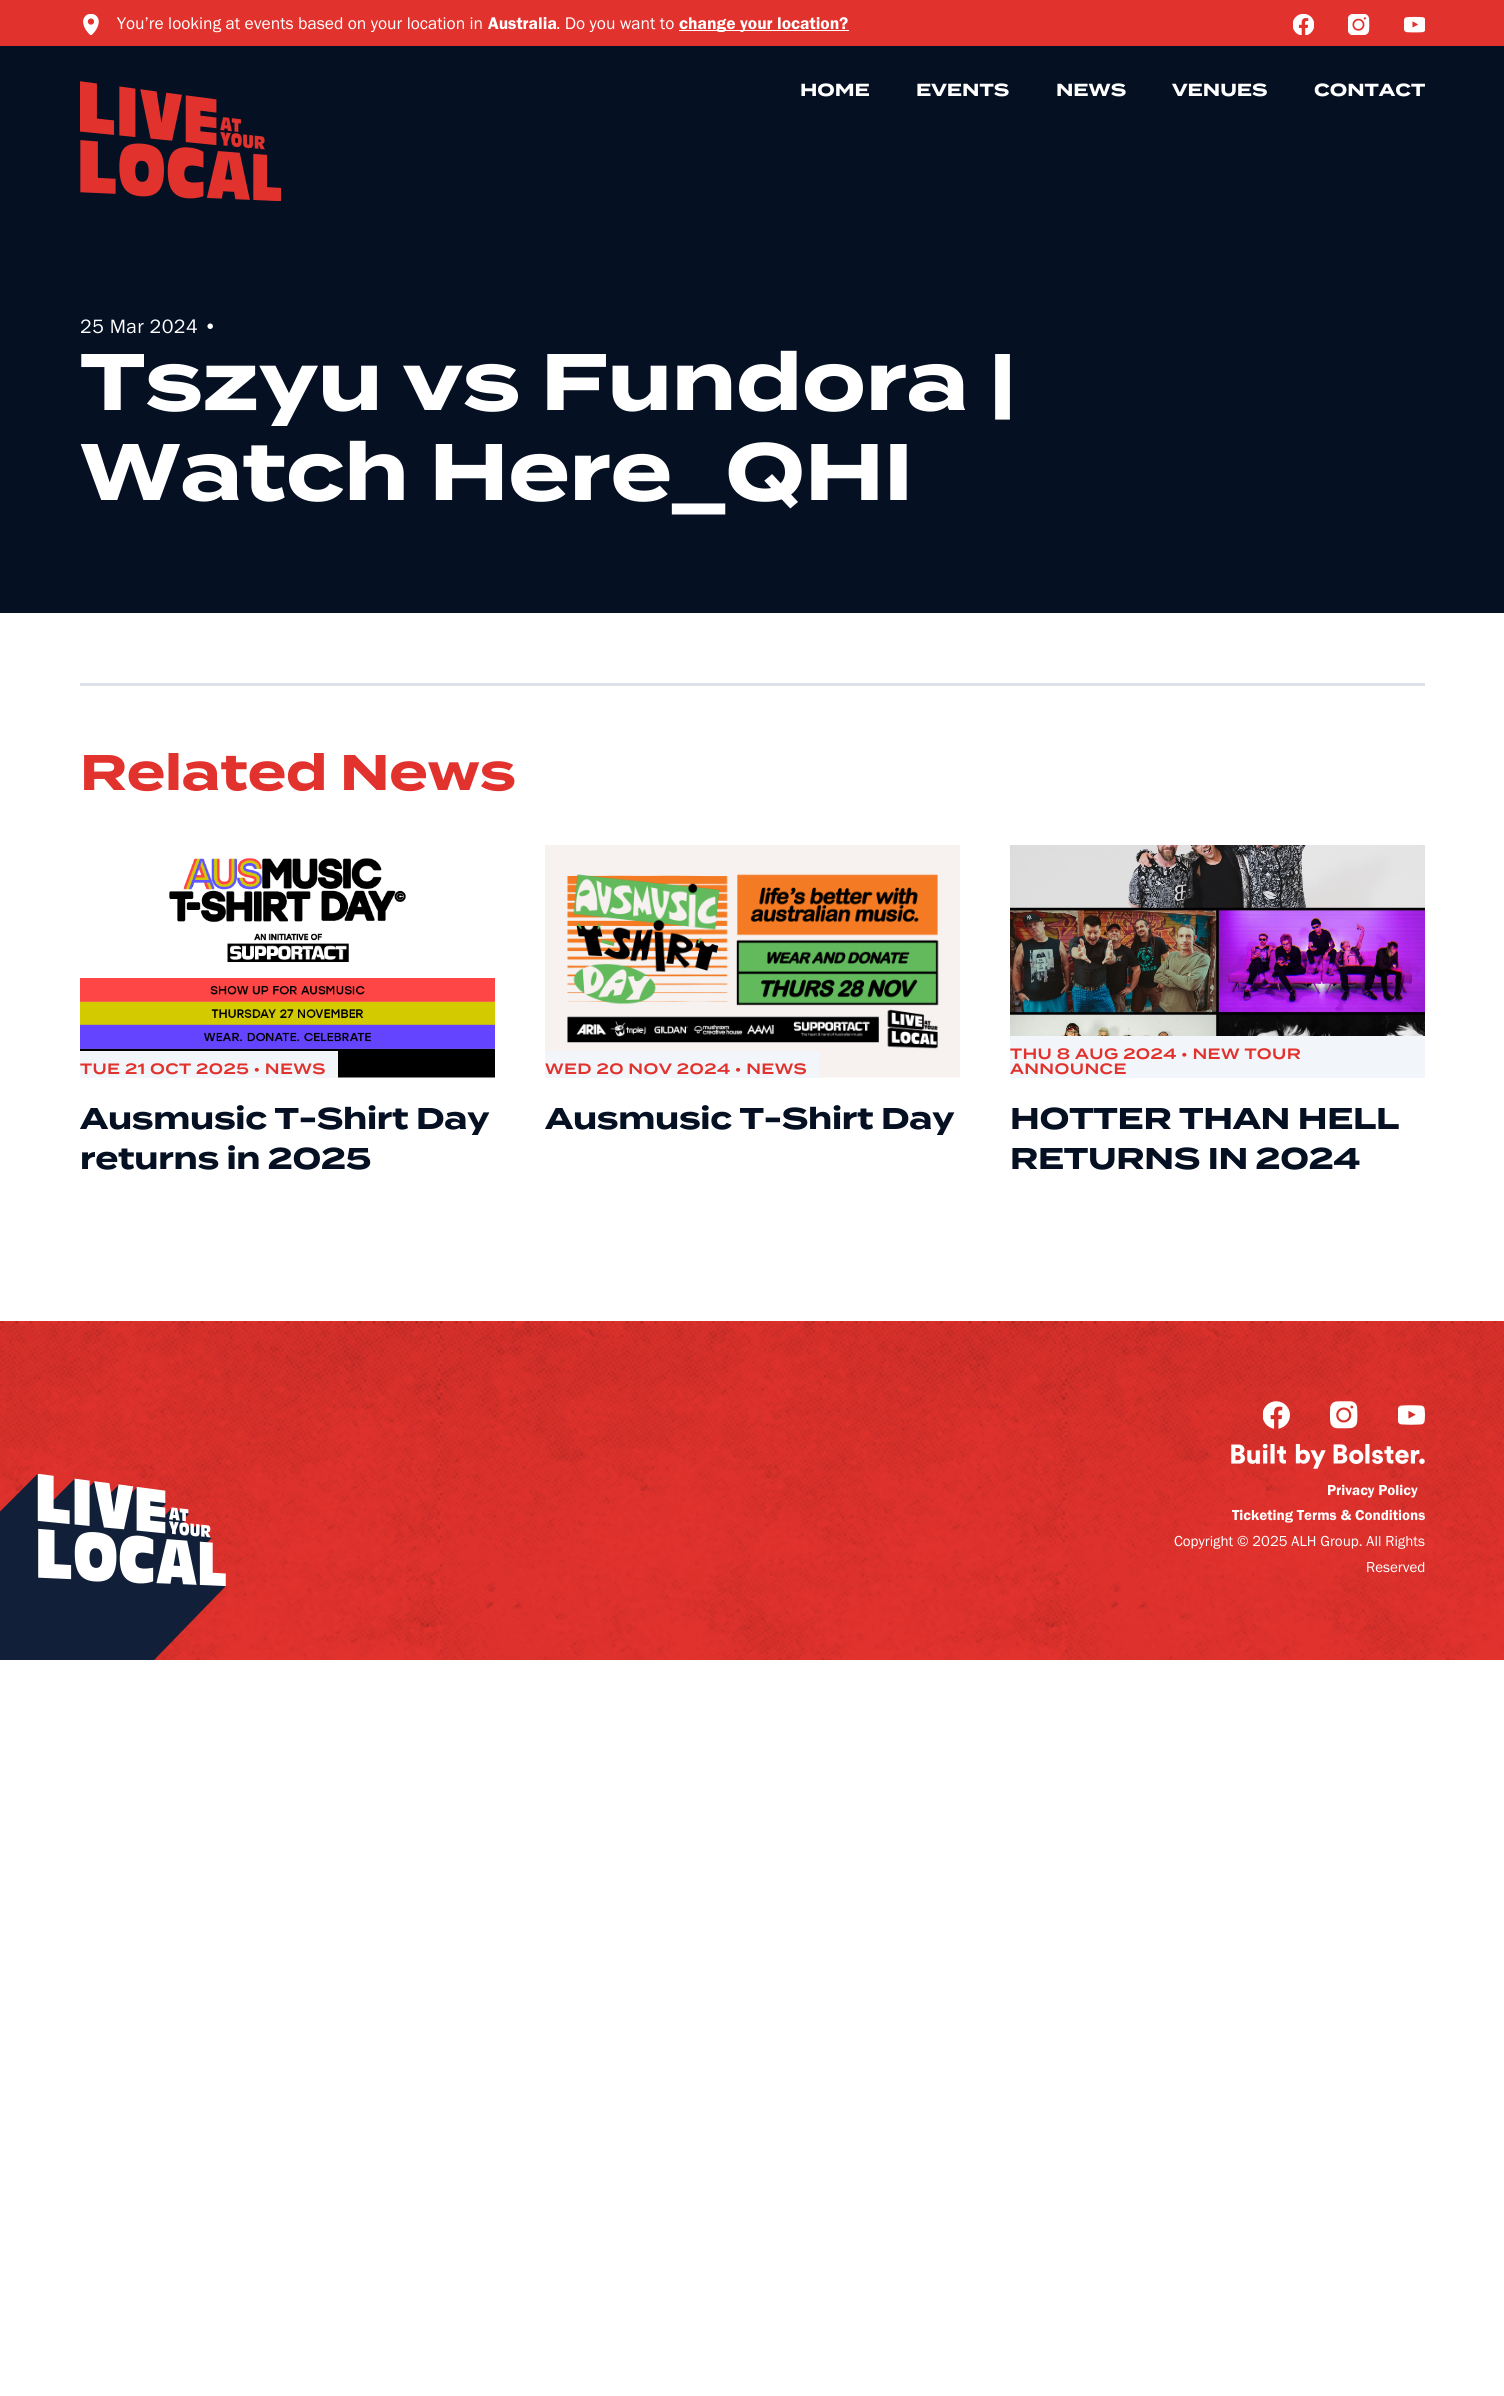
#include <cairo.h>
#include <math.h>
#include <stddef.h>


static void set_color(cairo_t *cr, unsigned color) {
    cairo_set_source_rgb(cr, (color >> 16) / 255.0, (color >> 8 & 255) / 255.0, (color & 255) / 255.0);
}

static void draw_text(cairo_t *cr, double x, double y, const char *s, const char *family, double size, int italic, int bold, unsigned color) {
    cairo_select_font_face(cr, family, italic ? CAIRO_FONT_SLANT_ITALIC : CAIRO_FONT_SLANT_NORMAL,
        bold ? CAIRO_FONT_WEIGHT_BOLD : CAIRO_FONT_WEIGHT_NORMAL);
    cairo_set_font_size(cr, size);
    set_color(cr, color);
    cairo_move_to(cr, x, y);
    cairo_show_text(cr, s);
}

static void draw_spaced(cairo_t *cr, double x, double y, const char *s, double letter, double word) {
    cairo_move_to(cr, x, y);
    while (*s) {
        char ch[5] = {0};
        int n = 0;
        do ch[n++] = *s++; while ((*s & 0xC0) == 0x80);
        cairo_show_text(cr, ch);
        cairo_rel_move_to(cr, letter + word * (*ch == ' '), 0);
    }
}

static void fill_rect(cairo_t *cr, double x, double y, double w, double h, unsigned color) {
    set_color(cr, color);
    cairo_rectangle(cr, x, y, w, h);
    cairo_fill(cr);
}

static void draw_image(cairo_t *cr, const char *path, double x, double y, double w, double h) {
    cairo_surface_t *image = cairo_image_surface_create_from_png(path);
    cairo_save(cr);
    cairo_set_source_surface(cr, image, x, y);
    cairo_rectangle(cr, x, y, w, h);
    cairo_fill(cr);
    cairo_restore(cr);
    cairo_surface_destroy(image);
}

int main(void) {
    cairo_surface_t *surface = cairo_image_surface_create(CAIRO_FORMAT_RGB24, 1504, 2396);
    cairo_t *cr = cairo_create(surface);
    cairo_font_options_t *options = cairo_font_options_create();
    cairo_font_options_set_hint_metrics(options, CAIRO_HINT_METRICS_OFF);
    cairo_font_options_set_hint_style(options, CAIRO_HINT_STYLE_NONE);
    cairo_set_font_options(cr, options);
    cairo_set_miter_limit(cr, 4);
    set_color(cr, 0xFFFFFF);
    cairo_paint(cr);
    fill_rect(cr, 0, 0, 1504, 46, 0xE2322D);
    draw_image(cr, "assets/img1.png", 83, 14, 16, 21);
    draw_text(cr, 117, 29, "You’re looking at events based on your location in", "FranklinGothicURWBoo", 17.5, 0, 0, 0xFFFFFF);
    draw_text(cr, 488, 29, "Australia", "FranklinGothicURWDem", 17.5, 0, 0, 0xFFFFFF);
    draw_text(cr, 556, 29, ". Do you want to", "FranklinGothicURWBoo", 17.5, 0, 0, 0xFFFFFF);
    fill_rect(cr, 679, 30, 170, 1, 0xFFFFFF);
    draw_text(cr, 679, 29, "change your location?", "FranklinGothicURWDem", 17.5, 0, 0, 0xFFFFFF);
    draw_image(cr, "assets/img2.png", 1293, 14, 21, 21);
    draw_image(cr, "assets/img3.png", 1348, 14, 22, 21);
    draw_image(cr, "assets/img4.png", 1404, 16, 21, 17);
    fill_rect(cr, 0, 46, 1504, 567, 0x051023);
    draw_image(cr, "assets/img5.png", 80, 81, 201, 120);
    draw_text(cr, 800, 96, "HOME", "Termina", 17.5, 0, 1, 0xFFFFFF);
    draw_text(cr, 916, 96, "EVENTS", "Termina", 17.5, 0, 1, 0xFFFFFF);
    draw_text(cr, 1056, 96, "NEWS", "Termina", 17.5, 0, 1, 0xFFFFFF);
    draw_text(cr, 1172, 96, "VENUES", "Termina", 17.5, 0, 1, 0xFFFFFF);
    draw_text(cr, 1314, 96, "CONTACT", "Termina", 17.5, 0, 1, 0xFFFFFF);
    cairo_select_font_face(cr, "FranklinGothicURWBoo", CAIRO_FONT_SLANT_NORMAL, CAIRO_FONT_WEIGHT_NORMAL);
    cairo_set_font_size(cr, 20);
    draw_spaced(cr, 80, 333, "25 Mar 2024 •", 0.4, 0);
    cairo_select_font_face(cr, "Termina", CAIRO_FONT_SLANT_NORMAL, CAIRO_FONT_WEIGHT_BOLD);
    cairo_set_font_size(cr, 80);
    draw_spaced(cr, 80, 410, "Tszyu vs Fundora |", -0.25, 0);
    draw_spaced(cr, 80, 500, "Watch Here_QHI", -0.25, 0);
    fill_rect(cr, 80, 683, 1345, 3, 0xDCE1E9);
    cairo_set_font_size(cr, 50);
    set_color(cr, 0xE2322D);
    draw_spaced(cr, 80, 790, "Related News", -0.2, 0);
    draw_image(cr, "assets/img6.png", 80, 858, 415, 220);
    fill_rect(cr, 80, 1051, 258, 27, 0xF2F5F9);
    cairo_select_font_face(cr, "Termina SemiBold", CAIRO_FONT_SLANT_NORMAL, CAIRO_FONT_WEIGHT_NORMAL);
    cairo_set_font_size(cr, 15);
    set_color(cr, 0xE2322D);
    draw_spaced(cr, 80, 1074, "TUE 21 OCT 2025 • NEWS", 0.4, 0);
    cairo_select_font_face(cr, "Termina", CAIRO_FONT_SLANT_NORMAL, CAIRO_FONT_WEIGHT_BOLD);
    cairo_set_font_size(cr, 30);
    set_color(cr, 0x051023);
    draw_spaced(cr, 80, 1129, "Ausmusic T-Shirt Day", -0.25, 0);
    draw_spaced(cr, 80, 1169, "returns in 2025", -0.25, 0);
    draw_image(cr, "assets/img7.png", 545, 845, 415, 233);
    fill_rect(cr, 545, 1051, 274, 27, 0xF2F5F9);
    cairo_select_font_face(cr, "Termina SemiBold", CAIRO_FONT_SLANT_NORMAL, CAIRO_FONT_WEIGHT_NORMAL);
    cairo_set_font_size(cr, 15);
    set_color(cr, 0xE2322D);
    draw_spaced(cr, 545, 1074, "WED 20 NOV 2024 • NEWS", 0.4, 0);
    cairo_select_font_face(cr, "Termina", CAIRO_FONT_SLANT_NORMAL, CAIRO_FONT_WEIGHT_BOLD);
    cairo_set_font_size(cr, 30);
    set_color(cr, 0x051023);
    draw_spaced(cr, 545, 1129, "Ausmusic T-Shirt Day", -0.25, 0);
    draw_image(cr, "assets/img8.png", 1010, 845, 415, 191);
    fill_rect(cr, 1010, 1036, 415, 42, 0xF2F5F9);
    cairo_select_font_face(cr, "Termina SemiBold", CAIRO_FONT_SLANT_NORMAL, CAIRO_FONT_WEIGHT_NORMAL);
    cairo_set_font_size(cr, 15);
    set_color(cr, 0xE2322D);
    draw_spaced(cr, 1010, 1059, "THU 8 AUG 2024 • NEW TOUR", 0.4, 0);
    draw_spaced(cr, 1010, 1074, "ANNOUNCE", 0.4, 0);
    cairo_select_font_face(cr, "Termina", CAIRO_FONT_SLANT_NORMAL, CAIRO_FONT_WEIGHT_BOLD);
    cairo_set_font_size(cr, 30);
    set_color(cr, 0x051023);
    draw_spaced(cr, 1010, 1129, "HOTTER THAN HELL", -0.25, 0);
    draw_spaced(cr, 1010, 1169, "RETURNS IN 2024", -0.25, 0);
    fill_rect(cr, 0, 1321, 1504, 339, 0xE2322D);
    draw_image(cr, "assets/img9.png", 0, 1321, 1504, 339);
    draw_image(cr, "assets/img10.png", 0, 1474, 226, 186);
    draw_image(cr, "assets/img11.png", 1263, 1401, 27, 28);
    draw_image(cr, "assets/img12.png", 1330, 1401, 28, 28);
    draw_image(cr, "assets/img13.png", 1398, 1405, 27, 20);
    draw_image(cr, "assets/img14.png", 1231, 1444, 194, 25);
    draw_text(cr, 1327, 1495, "Privacy Policy", "FranklinGothicURWDem", 15, 0, 0, 0xFFFFFF);
    draw_text(cr, 1232, 1520, "Ticketing Terms & Conditions", "FranklinGothicURWDem", 15, 0, 0, 0xFFFFFF);
    draw_text(cr, 1174, 1546, "Copyright © 2025 ALH Group. All Rights", "FranklinGothicURWBoo", 15, 0, 0, 0xFFFFFF);
    draw_text(cr, 1366, 1572, "Reserved", "FranklinGothicURWBoo", 15, 0, 0, 0xFFFFFF);
    cairo_surface_write_to_png(surface, "output.png");
    cairo_font_options_destroy(options);
    cairo_destroy(cr);
    cairo_surface_destroy(surface);
    return 0;
}
